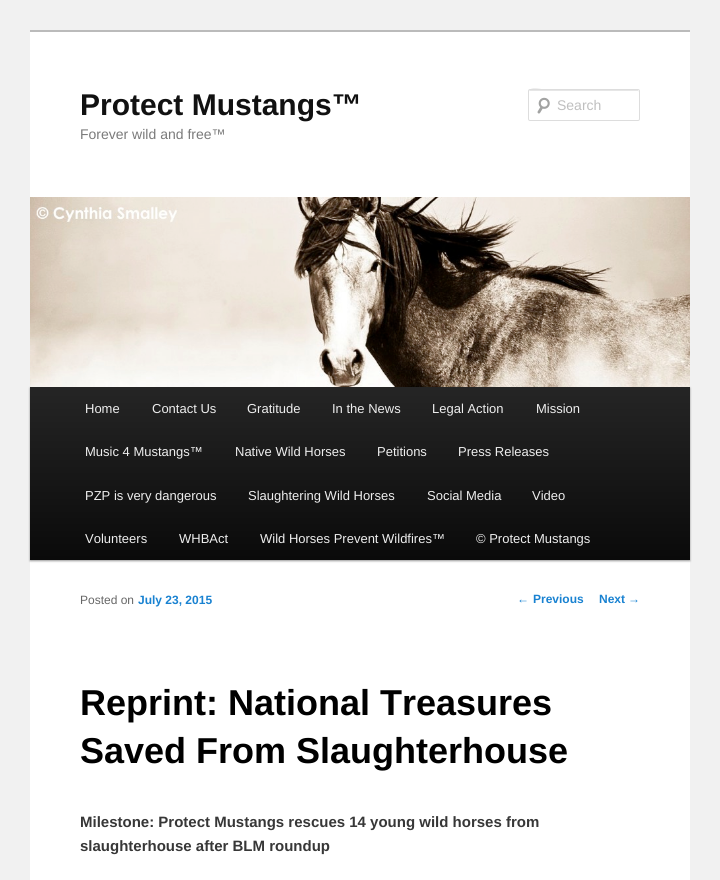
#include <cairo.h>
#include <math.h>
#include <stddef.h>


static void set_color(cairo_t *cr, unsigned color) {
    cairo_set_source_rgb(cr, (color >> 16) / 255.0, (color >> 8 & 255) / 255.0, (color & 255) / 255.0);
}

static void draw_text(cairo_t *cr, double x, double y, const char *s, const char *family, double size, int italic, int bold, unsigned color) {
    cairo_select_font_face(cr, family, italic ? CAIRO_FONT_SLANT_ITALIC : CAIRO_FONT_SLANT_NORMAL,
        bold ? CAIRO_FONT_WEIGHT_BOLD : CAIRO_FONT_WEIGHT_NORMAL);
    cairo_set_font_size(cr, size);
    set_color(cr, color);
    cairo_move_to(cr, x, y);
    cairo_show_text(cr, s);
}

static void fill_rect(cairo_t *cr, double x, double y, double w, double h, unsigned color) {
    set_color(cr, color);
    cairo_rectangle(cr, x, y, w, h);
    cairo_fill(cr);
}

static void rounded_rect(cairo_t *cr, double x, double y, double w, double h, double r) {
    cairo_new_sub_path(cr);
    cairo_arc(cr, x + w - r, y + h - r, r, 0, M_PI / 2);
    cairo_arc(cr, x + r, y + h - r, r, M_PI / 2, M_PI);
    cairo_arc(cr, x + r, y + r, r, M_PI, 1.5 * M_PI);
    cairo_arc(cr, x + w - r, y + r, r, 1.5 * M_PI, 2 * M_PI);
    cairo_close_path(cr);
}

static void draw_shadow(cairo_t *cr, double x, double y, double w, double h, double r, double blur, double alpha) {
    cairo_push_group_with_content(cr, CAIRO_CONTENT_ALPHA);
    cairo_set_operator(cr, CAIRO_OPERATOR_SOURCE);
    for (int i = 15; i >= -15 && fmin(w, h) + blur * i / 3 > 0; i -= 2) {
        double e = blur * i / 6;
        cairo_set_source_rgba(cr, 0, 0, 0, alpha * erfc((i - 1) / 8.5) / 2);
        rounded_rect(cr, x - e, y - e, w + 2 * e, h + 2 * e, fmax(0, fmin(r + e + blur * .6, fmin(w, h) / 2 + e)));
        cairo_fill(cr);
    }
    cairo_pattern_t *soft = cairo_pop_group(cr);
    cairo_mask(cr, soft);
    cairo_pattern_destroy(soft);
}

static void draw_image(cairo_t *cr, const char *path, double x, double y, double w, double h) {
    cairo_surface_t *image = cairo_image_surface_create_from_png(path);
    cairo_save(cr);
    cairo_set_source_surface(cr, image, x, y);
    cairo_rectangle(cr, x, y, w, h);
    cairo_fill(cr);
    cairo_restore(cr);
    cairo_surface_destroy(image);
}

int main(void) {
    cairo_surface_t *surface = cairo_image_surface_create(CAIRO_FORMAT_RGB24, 720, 880);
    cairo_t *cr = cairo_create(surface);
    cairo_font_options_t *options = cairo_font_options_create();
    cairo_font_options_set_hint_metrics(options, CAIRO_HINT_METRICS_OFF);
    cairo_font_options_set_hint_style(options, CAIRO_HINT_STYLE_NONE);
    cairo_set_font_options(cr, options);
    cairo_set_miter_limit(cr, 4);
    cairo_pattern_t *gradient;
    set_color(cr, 0xF1F1F1);
    cairo_paint(cr);
    fill_rect(cr, 30, 32, 660, 848, 0xFFFFFF);
    fill_rect(cr, 30, 30, 660, 2, 0xBBBBBB);
    draw_text(cr, 80, 115, "Protect Mustangs™", "Liberation Sans", 30, 0, 1, 0x111111);
    draw_text(cr, 80, 139, "Forever wild and free™", "Liberation Sans", 14, 0, 0, 0x7A7A7A);
    draw_image(cr, "assets/img1.png", 537, 97, 13, 17);
    set_color(cr, 0xE6E6E6);
    cairo_new_path(cr);
    cairo_move_to(cr, 530, 91);
    cairo_line_to(cr, 639, 91);
    cairo_line_to(cr, 639, 92);
    cairo_line_to(cr, 638, 90);
    cairo_line_to(cr, 548, 90);
    cairo_curve_to(cr, 544, 90, 529, 85, 529, 92);
    cairo_curve_to(cr, 529, 91, 529, 91, 530, 91);
    cairo_close_path(cr);
    cairo_fill(cr);
    rounded_rect(cr, 528.5, 89.5, 111, 31, 1.5);
    set_color(cr, 0xDDDDDD);
    cairo_set_line_width(cr, 1);
    cairo_stroke(cr);
    draw_text(cr, 557, 110, "Search", "Liberation Sans", 14, 0, 0, 0xBFBFBF);
    set_color(cr, 0x000000);
    draw_shadow(cr, 30, 388, 660, 173, 0, 1, 0.4);
    draw_image(cr, "assets/img2.png", 30, 197, 660, 190);
    gradient = cairo_pattern_create_linear(360, 387, 360, 560);
    cairo_pattern_add_color_stop_rgba(gradient, 0, 0.145, 0.145, 0.145, 1);
    cairo_pattern_add_color_stop_rgba(gradient, 1, 0.039, 0.039, 0.039, 1);
    cairo_set_source(cr, gradient);
    cairo_pattern_destroy(gradient);
    cairo_rectangle(cr, 30, 387, 660, 173);
    cairo_fill(cr);
    draw_text(cr, 85, 413, "Home", "Liberation Sans", 13, 0, 0, 0xEEEEEE);
    draw_text(cr, 152, 413, "Contact Us", "Liberation Sans", 13, 0, 0, 0xEEEEEE);
    draw_text(cr, 247, 413, "Gratitude", "Liberation Sans", 13, 0, 0, 0xEEEEEE);
    draw_text(cr, 332, 413, "In the News", "Liberation Sans", 13, 0, 0, 0xEEEEEE);
    draw_text(cr, 432, 413, "Legal Action", "Liberation Sans", 13, 0, 0, 0xEEEEEE);
    draw_text(cr, 536, 413, "Mission", "Liberation Sans", 13, 0, 0, 0xEEEEEE);
    draw_text(cr, 85, 456, "Music 4 Mustangs™", "Liberation Sans", 13, 0, 0, 0xEEEEEE);
    draw_text(cr, 235, 456, "Native Wild Horses", "Liberation Sans", 13, 0, 0, 0xEEEEEE);
    draw_text(cr, 377, 456, "Petitions", "Liberation Sans", 13, 0, 0, 0xEEEEEE);
    draw_text(cr, 458, 456, "Press Releases", "Liberation Sans", 13, 0, 0, 0xEEEEEE);
    draw_text(cr, 85, 500, "PZP is very dangerous", "Liberation Sans", 13, 0, 0, 0xEEEEEE);
    draw_text(cr, 248, 500, "Slaughtering Wild Horses", "Liberation Sans", 13, 0, 0, 0xEEEEEE);
    draw_text(cr, 427, 500, "Social Media", "Liberation Sans", 13, 0, 0, 0xEEEEEE);
    draw_text(cr, 532, 500, "Video", "Liberation Sans", 13, 0, 0, 0xEEEEEE);
    draw_text(cr, 85, 543, "Volunteers", "Liberation Sans", 13, 0, 0, 0xEEEEEE);
    draw_text(cr, 179, 543, "WHBAct", "Liberation Sans", 13, 0, 0, 0xEEEEEE);
    draw_text(cr, 260, 543, "Wild Horses Prevent Wildfires™", "Liberation Sans", 13, 0, 0, 0xEEEEEE);
    draw_text(cr, 476, 543, "© Protect Mustangs", "Liberation Sans", 13, 0, 0, 0xEEEEEE);
    draw_text(cr, 80, 604, "Posted on", "Liberation Sans", 12, 0, 0, 0x666666);
    draw_text(cr, 138, 604, "July 23, 2015", "Liberation Sans", 12, 0, 1, 0x1982D1);
    draw_text(cr, 80, 715, "Reprint: National Treasures", "Liberation Sans", 36, 0, 1, 0x000000);
    draw_text(cr, 80, 763, "Saved From Slaughterhouse", "Liberation Sans", 36, 0, 1, 0x000000);
    draw_text(cr, 80, 827, "Milestone: Protect Mustangs rescues 14 young wild horses from", "Liberation Sans", 15, 0, 1, 0x373737);
    draw_text(cr, 80, 851, "slaughterhouse after BLM roundup", "Liberation Sans", 15, 0, 1, 0x373737);
    draw_text(cr, 517, 603, "←", "Liberation Sans", 12, 0, 0, 0x1982D1);
    draw_text(cr, 533, 603, "Previous", "Liberation Sans", 12, 0, 1, 0x1982D1);
    draw_text(cr, 599, 603, "Next", "Liberation Sans", 12, 0, 1, 0x1982D1);
    draw_text(cr, 628, 603, "→", "Liberation Sans", 12, 0, 0, 0x1982D1);
    cairo_surface_write_to_png(surface, "output.png");
    cairo_font_options_destroy(options);
    cairo_destroy(cr);
    cairo_surface_destroy(surface);
    return 0;
}
